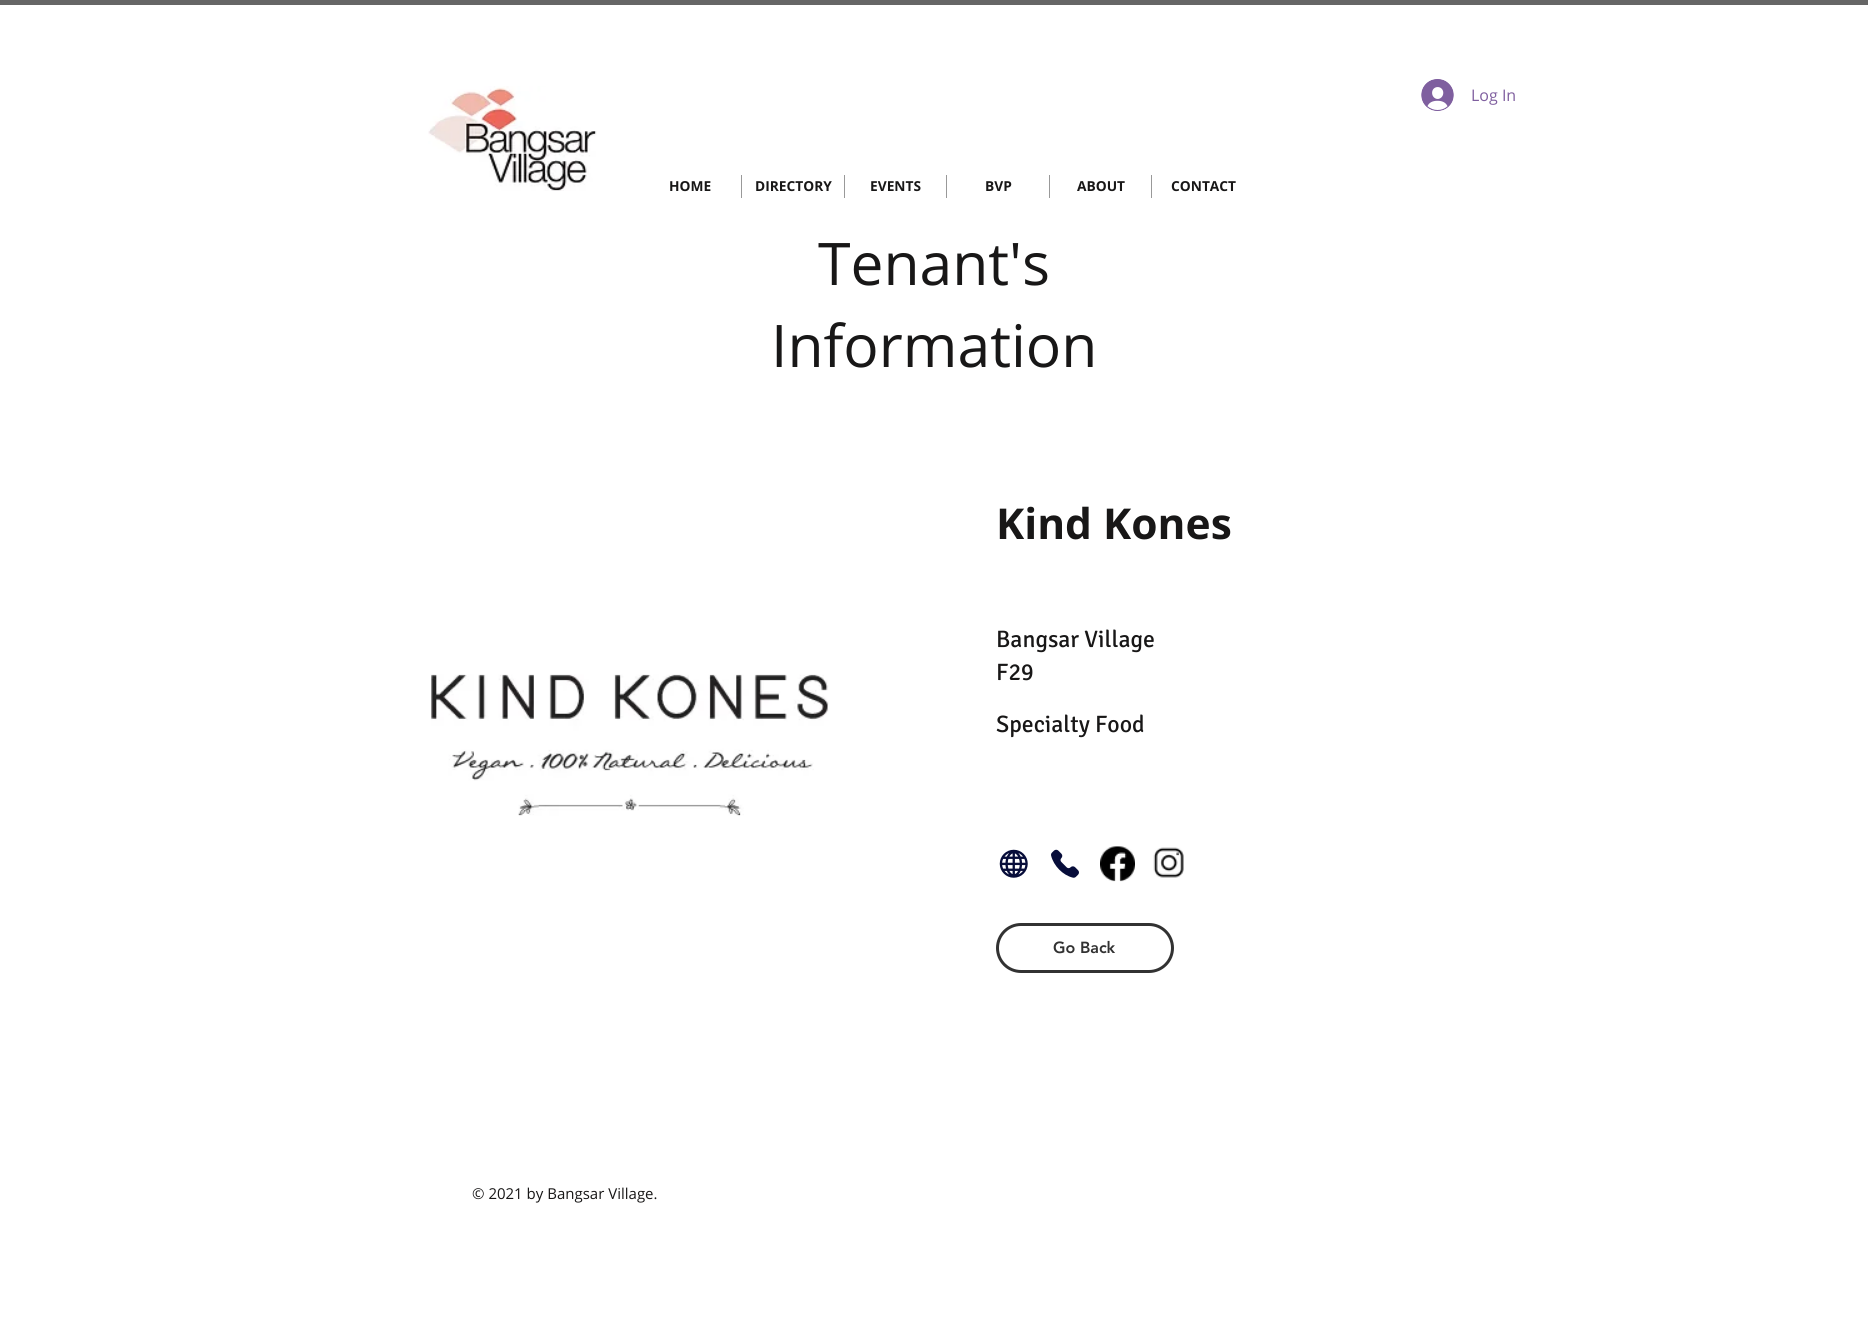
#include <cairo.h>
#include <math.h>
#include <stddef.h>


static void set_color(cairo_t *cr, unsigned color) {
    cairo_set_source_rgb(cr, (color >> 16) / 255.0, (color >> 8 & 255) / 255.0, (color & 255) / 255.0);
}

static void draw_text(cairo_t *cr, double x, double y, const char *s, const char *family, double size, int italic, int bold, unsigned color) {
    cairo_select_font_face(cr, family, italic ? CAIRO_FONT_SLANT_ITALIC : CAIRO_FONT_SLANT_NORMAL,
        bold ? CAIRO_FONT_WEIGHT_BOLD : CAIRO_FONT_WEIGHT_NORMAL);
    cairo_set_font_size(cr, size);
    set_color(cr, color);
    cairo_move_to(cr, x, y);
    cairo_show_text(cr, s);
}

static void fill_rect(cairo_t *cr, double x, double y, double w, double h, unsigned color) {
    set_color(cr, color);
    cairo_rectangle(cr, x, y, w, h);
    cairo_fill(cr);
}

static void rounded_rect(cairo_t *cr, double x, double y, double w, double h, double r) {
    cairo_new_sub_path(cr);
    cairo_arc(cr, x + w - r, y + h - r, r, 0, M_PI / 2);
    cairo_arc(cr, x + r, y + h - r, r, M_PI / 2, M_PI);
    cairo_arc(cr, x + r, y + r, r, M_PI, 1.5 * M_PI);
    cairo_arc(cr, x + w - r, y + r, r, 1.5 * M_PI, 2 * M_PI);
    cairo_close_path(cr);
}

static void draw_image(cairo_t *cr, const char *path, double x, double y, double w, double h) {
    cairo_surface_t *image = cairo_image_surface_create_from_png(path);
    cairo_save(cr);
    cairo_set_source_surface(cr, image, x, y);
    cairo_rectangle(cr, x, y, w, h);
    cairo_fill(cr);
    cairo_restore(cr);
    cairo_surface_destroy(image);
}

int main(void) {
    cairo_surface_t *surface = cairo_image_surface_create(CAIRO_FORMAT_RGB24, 1868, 1324);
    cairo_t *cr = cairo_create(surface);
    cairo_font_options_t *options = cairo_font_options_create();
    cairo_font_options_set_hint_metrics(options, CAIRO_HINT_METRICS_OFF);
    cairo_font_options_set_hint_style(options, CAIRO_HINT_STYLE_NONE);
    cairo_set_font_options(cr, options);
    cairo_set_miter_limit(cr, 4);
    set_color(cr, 0xFFFFFF);
    cairo_paint(cr);
    fill_rect(cr, 0, 0, 1868, 5, 0x666666);
    draw_image(cr, "assets/img1.png", 428, 86, 169, 105);
    draw_image(cr, "assets/img2.png", 1421, 79, 33, 32);
    draw_text(cr, 1471, 101, "Log In", "Open Sans", 16, 0, 0, 0x7F5F9F);
    draw_text(cr, 669, 191, "HOME", "Open Sans", 13.75, 0, 1, 0x181717);
    fill_rect(cr, 741, 175, 1, 23, 0x999999);
    draw_text(cr, 755, 191, "DIRECTORY", "Open Sans", 13.75, 0, 1, 0x181717);
    fill_rect(cr, 844, 175, 1, 23, 0x999999);
    draw_text(cr, 870, 191, "EVENTS", "Open Sans", 13.75, 0, 1, 0x181717);
    fill_rect(cr, 946, 175, 1, 23, 0x999999);
    draw_text(cr, 985, 191, "BVP", "Open Sans", 13.75, 0, 1, 0x181717);
    fill_rect(cr, 1049, 175, 1, 23, 0x999999);
    draw_text(cr, 1077, 191, "ABOUT", "Open Sans", 13.75, 0, 1, 0x181717);
    fill_rect(cr, 1151, 175, 1, 23, 0x999999);
    draw_text(cr, 1171, 191, "CONTACT", "Open Sans", 13.75, 0, 1, 0x181717);
    draw_text(cr, 818, 285, "Tenant's", "Open Sans", 58.75, 0, 0, 0x181717);
    draw_text(cr, 771, 367, "Information", "Open Sans", 58.75, 0, 0, 0x181717);
    draw_image(cr, "assets/img3.png", 431, 674, 398, 142);
    draw_text(cr, 996, 539, "Kind Kones", "Open Sans", 42.5, 0, 1, 0x181717);
    draw_text(cr, 996, 647, "Bangsar Village", "Signika", 23.75, 0, 0, 0x181717);
    draw_text(cr, 996, 680, "F29", "Signika", 23.75, 0, 0, 0x181717);
    draw_text(cr, 996, 732, "Specialty Food", "Signika", 23.75, 0, 0, 0x181717);
    draw_image(cr, "assets/img4.png", 999, 849, 29, 29);
    draw_image(cr, "assets/img5.png", 1051, 849, 28, 29);
    draw_image(cr, "assets/img6.png", 1100, 846, 35, 36);
    draw_image(cr, "assets/img7.png", 1153, 847, 31, 31);
    rounded_rect(cr, 997.5, 924.5, 175, 47, 23.5);
    set_color(cr, 0x323232);
    cairo_set_line_width(cr, 3);
    cairo_stroke(cr);
    draw_text(cr, 1053, 953, "Go Back", "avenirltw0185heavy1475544 Black", 16, 0, 0, 0x323232);
    draw_text(cr, 472, 1199, "© 2021 by Bangsar Village.", "Open Sans", 15, 0, 0, 0x181717);
    cairo_surface_write_to_png(surface, "output.png");
    cairo_font_options_destroy(options);
    cairo_destroy(cr);
    cairo_surface_destroy(surface);
    return 0;
}
